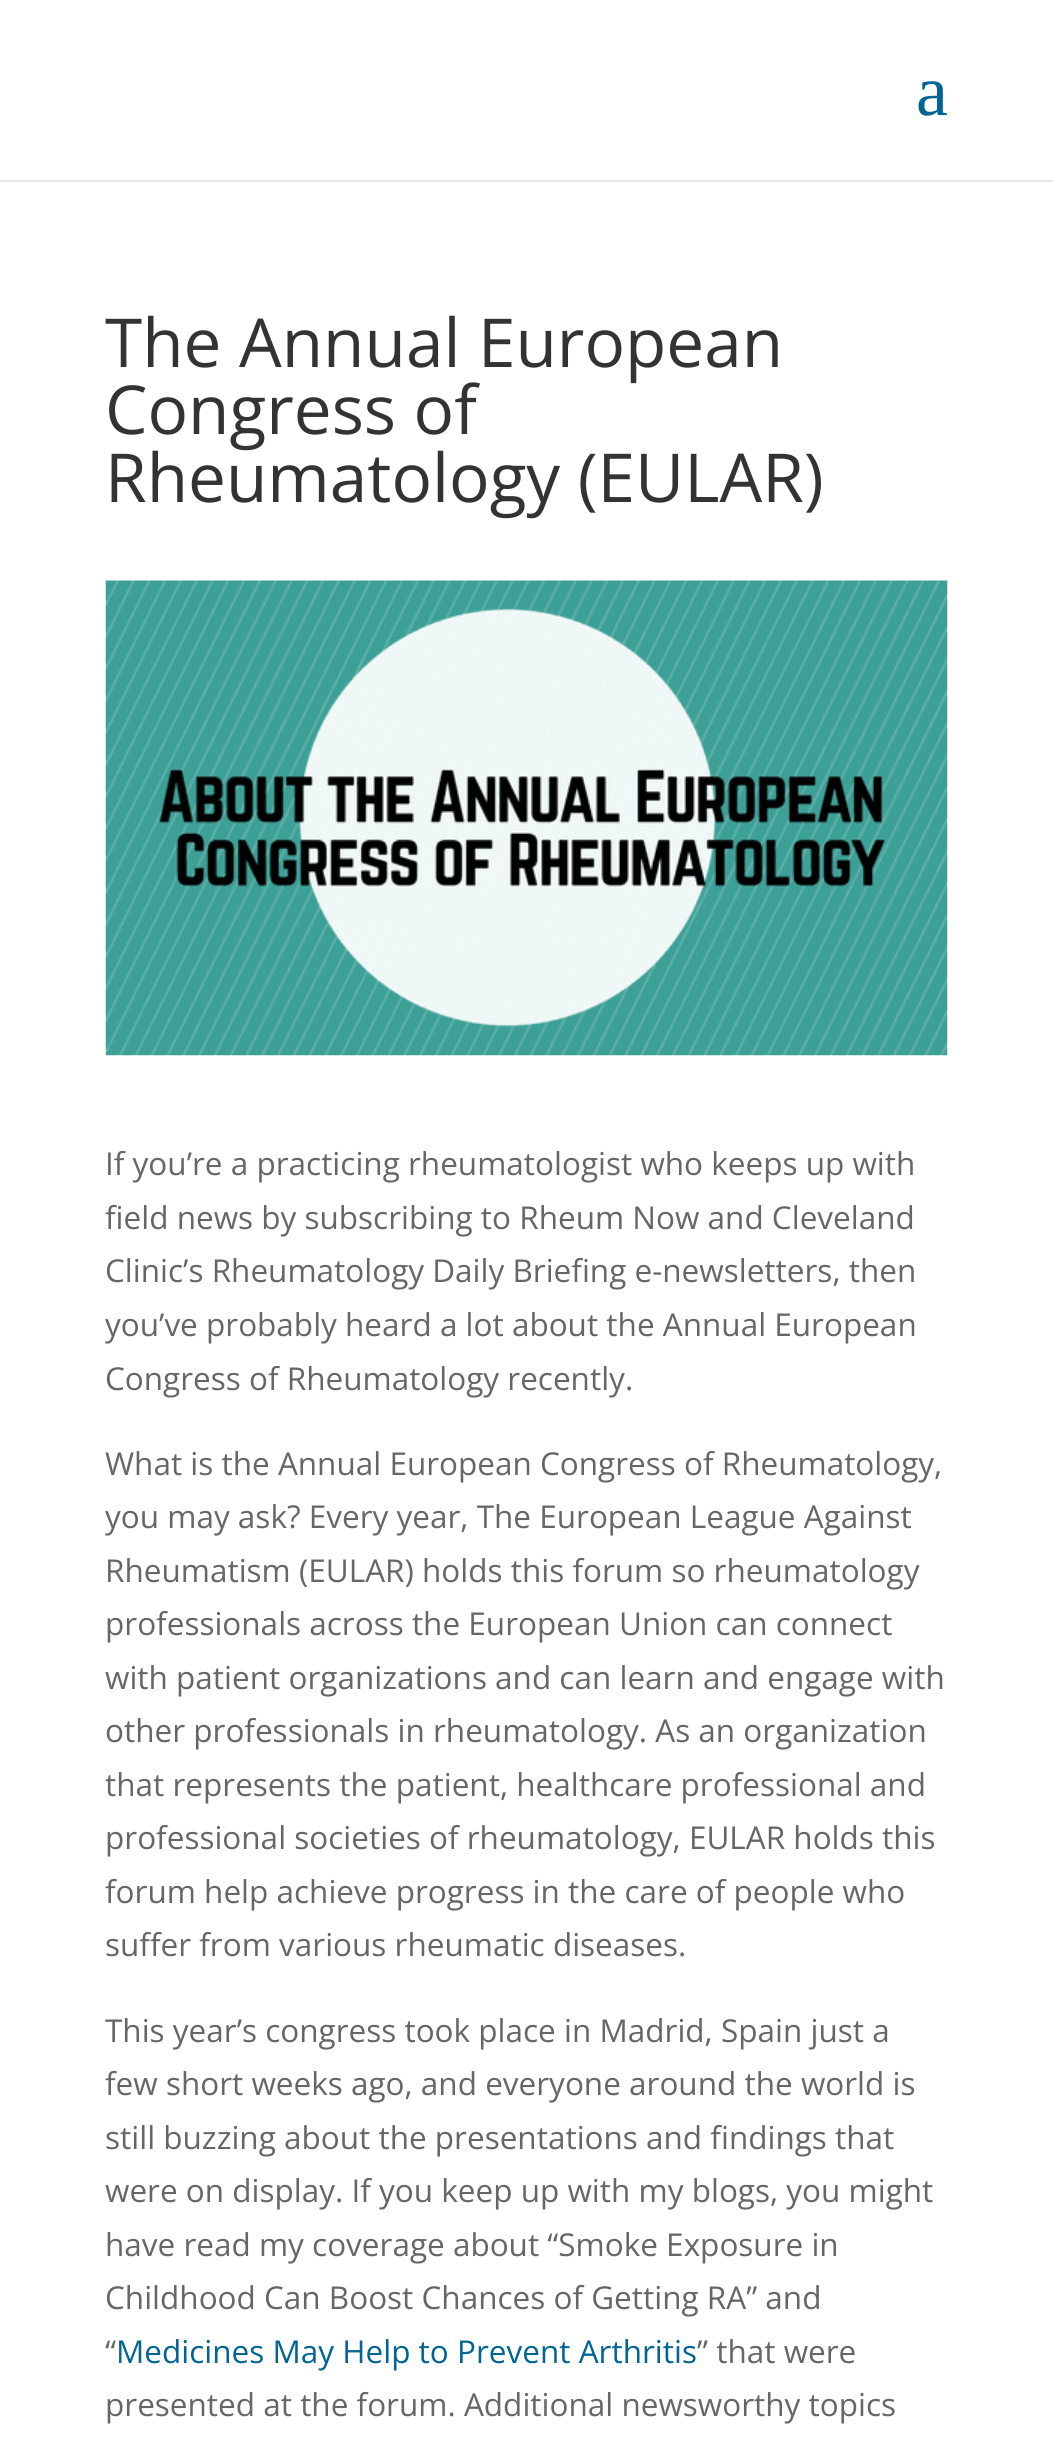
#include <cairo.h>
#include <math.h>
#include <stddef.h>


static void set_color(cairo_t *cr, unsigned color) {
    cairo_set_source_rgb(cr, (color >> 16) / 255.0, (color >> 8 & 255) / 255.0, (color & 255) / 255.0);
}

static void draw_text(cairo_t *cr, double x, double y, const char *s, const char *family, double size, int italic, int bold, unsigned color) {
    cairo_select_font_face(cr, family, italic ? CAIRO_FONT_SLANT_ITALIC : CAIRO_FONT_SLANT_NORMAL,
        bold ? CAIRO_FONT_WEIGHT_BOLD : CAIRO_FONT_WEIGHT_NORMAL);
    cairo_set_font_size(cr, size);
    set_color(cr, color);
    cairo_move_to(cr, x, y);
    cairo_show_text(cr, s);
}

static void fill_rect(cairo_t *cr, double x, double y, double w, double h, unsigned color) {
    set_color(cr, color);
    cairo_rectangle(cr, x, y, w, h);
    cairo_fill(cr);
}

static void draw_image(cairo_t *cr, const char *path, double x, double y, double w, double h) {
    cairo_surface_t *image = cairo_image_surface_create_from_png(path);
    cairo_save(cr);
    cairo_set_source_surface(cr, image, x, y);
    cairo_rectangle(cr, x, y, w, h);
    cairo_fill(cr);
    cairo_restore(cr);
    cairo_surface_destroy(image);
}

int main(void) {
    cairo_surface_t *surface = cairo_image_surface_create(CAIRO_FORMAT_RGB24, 1053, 2462);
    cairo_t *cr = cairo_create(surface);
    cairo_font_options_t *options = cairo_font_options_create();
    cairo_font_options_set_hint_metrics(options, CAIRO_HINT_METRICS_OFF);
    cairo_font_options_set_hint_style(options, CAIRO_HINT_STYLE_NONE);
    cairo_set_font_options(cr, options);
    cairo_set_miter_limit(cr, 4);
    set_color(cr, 0xFFFFFF);
    cairo_paint(cr);
    fill_rect(cr, 0, 180, 1053, 2, 0xE6E6E6);
    draw_text(cr, 916, 115, "a", "Liberation Serif", 72, 0, 0, 0x006494);
    draw_text(cr, 105, 367, "The Annual European", "Open Sans", 67.5, 0, 0, 0x333333);
    draw_text(cr, 105, 434, "Congress of", "Open Sans", 67.5, 0, 0, 0x333333);
    draw_text(cr, 105, 502, "Rheumatology (EULAR)", "Open Sans", 67.5, 0, 0, 0x333333);
    draw_image(cr, "assets/img1.png", 105, 580, 843, 476);
    draw_text(cr, 105, 1175, "If you’re a practicing rheumatologist who keeps up with", "Open Sans", 31.5, 0, 0, 0x666666);
    draw_text(cr, 105, 1229, "field news by subscribing to Rheum Now and Cleveland", "Open Sans", 31.5, 0, 0, 0x666666);
    draw_text(cr, 105, 1282, "Clinic’s Rheumatology Daily Briefing e-newsletters, then", "Open Sans", 31.5, 0, 0, 0x666666);
    draw_text(cr, 105, 1336, "you’ve probably heard a lot about the Annual European", "Open Sans", 31.5, 0, 0, 0x666666);
    draw_text(cr, 105, 1390, "Congress of Rheumatology recently.", "Open Sans", 31.5, 0, 0, 0x666666);
    draw_text(cr, 105, 1475, "What is the Annual European Congress of Rheumatology,", "Open Sans", 31.5, 0, 0, 0x666666);
    draw_text(cr, 105, 1528, "you may ask? Every year, The European League Against", "Open Sans", 31.5, 0, 0, 0x666666);
    draw_text(cr, 105, 1582, "Rheumatism (EULAR) holds this forum so rheumatology", "Open Sans", 31.5, 0, 0, 0x666666);
    draw_text(cr, 105, 1635, "professionals across the European Union can connect", "Open Sans", 31.5, 0, 0, 0x666666);
    draw_text(cr, 105, 1689, "with patient organizations and can learn and engage with", "Open Sans", 31.5, 0, 0, 0x666666);
    draw_text(cr, 105, 1742, "other professionals in rheumatology. As an organization", "Open Sans", 31.5, 0, 0, 0x666666);
    draw_text(cr, 105, 1796, "that represents the patient, healthcare professional and", "Open Sans", 31.5, 0, 0, 0x666666);
    draw_text(cr, 105, 1849, "professional societies of rheumatology, EULAR holds this", "Open Sans", 31.5, 0, 0, 0x666666);
    draw_text(cr, 105, 1903, "forum help achieve progress in the care of people who", "Open Sans", 31.5, 0, 0, 0x666666);
    draw_text(cr, 105, 1956, "suffer from various rheumatic diseases.", "Open Sans", 31.5, 0, 0, 0x666666);
    draw_text(cr, 105, 2042, "This year’s congress took place in Madrid, Spain just a", "Open Sans", 31.5, 0, 0, 0x666666);
    draw_text(cr, 105, 2095, "few short weeks ago, and everyone around the world is", "Open Sans", 31.5, 0, 0, 0x666666);
    draw_text(cr, 105, 2149, "still buzzing about the presentations and findings that", "Open Sans", 31.5, 0, 0, 0x666666);
    draw_text(cr, 105, 2202, "were on display. If you keep up with my blogs, you might", "Open Sans", 31.5, 0, 0, 0x666666);
    draw_text(cr, 105, 2256, "have read my coverage about “Smoke Exposure in", "Open Sans", 31.5, 0, 0, 0x666666);
    draw_text(cr, 105, 2309, "Childhood Can Boost Chances of Getting RA” and", "Open Sans", 31.5, 0, 0, 0x666666);
    draw_text(cr, 105, 2363, "“", "Open Sans", 31.5, 0, 0, 0x666666);
    draw_text(cr, 116, 2363, "Medicines May Help to Prevent Arthritis", "Open Sans", 31.5, 0, 0, 0x006494);
    draw_text(cr, 697, 2363, "” that were", "Open Sans", 31.5, 0, 0, 0x666666);
    draw_text(cr, 105, 2416, "presented at the forum. Additional newsworthy topics", "Open Sans", 31.5, 0, 0, 0x666666);
    cairo_surface_write_to_png(surface, "output.png");
    cairo_font_options_destroy(options);
    cairo_destroy(cr);
    cairo_surface_destroy(surface);
    return 0;
}
